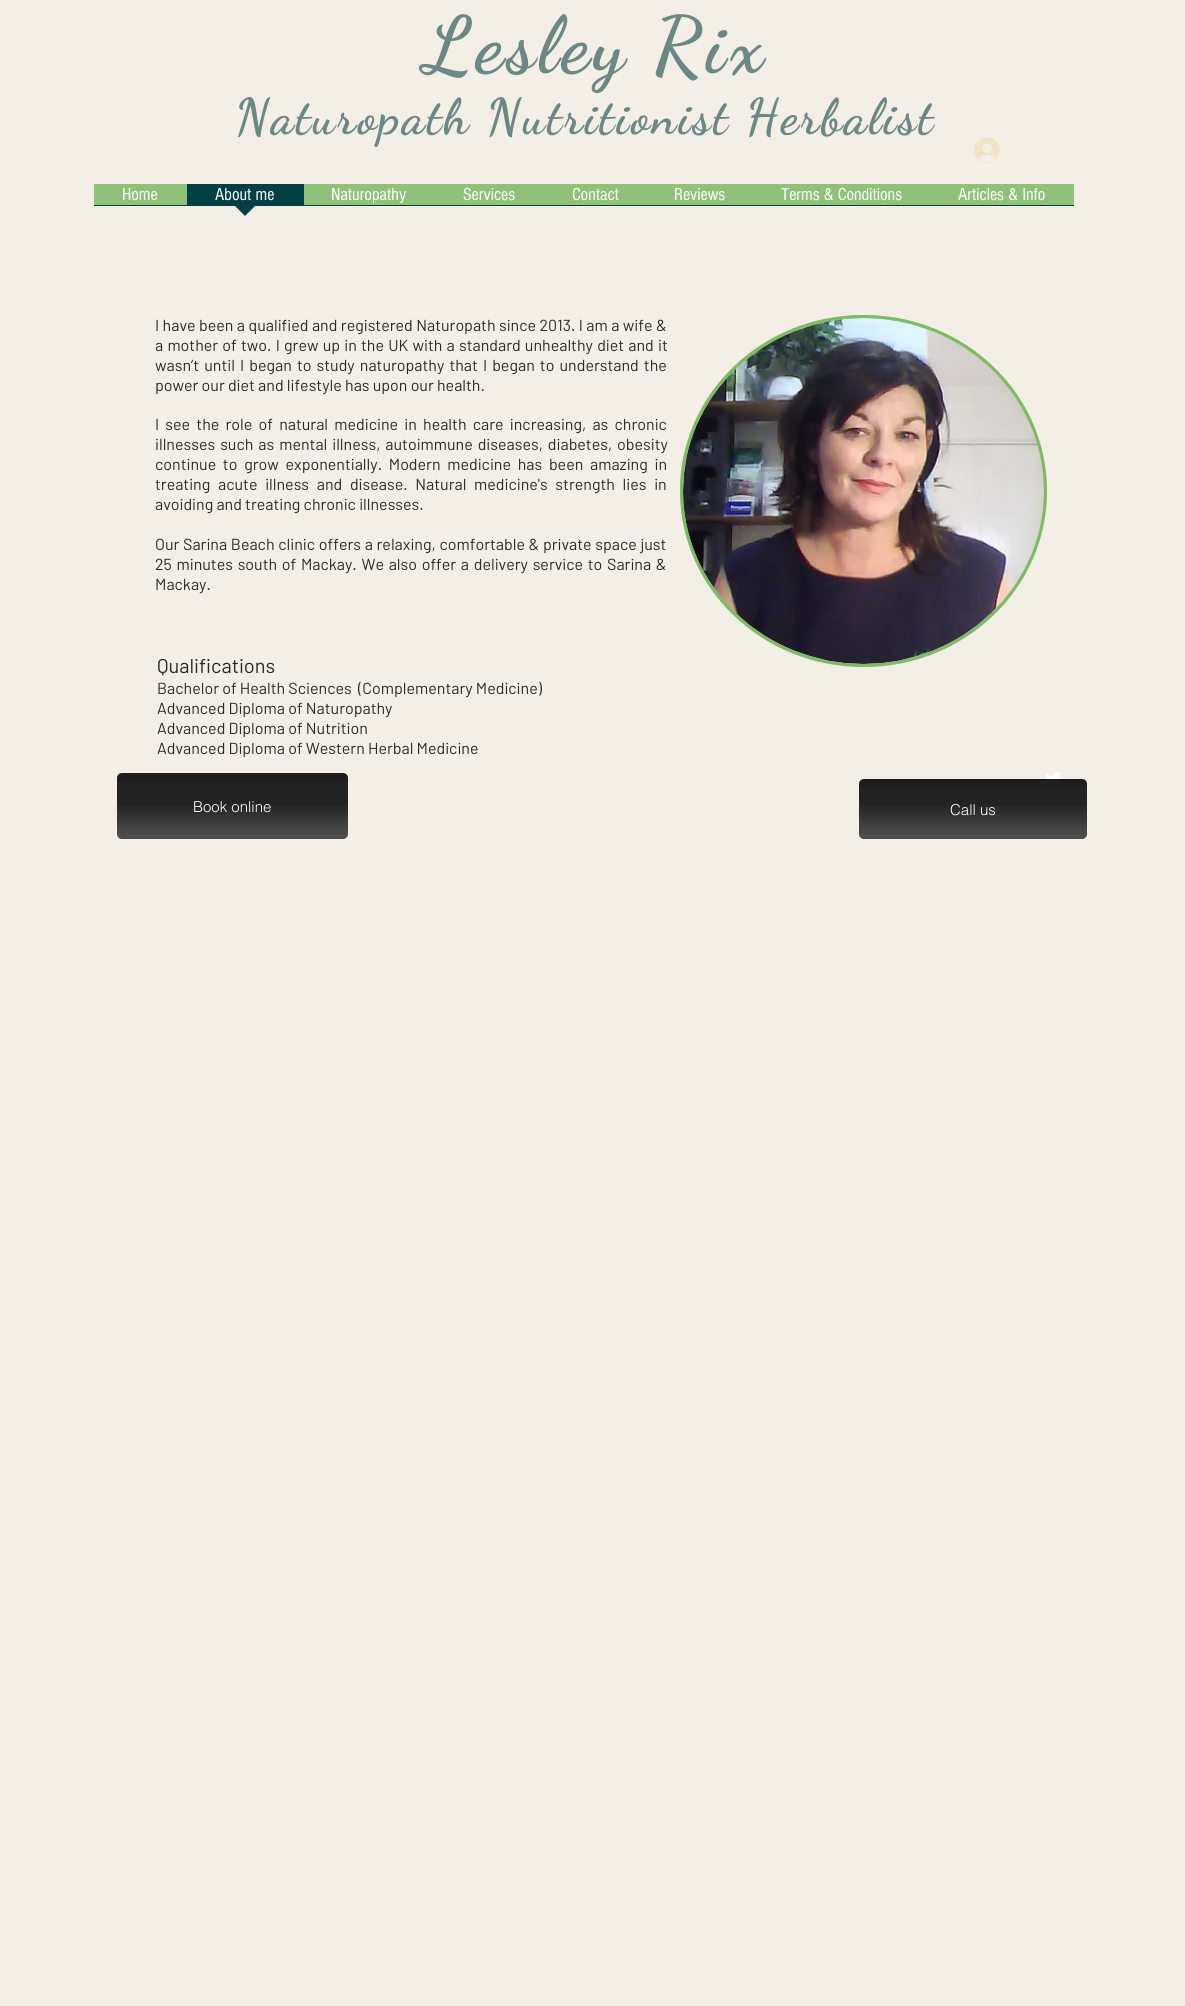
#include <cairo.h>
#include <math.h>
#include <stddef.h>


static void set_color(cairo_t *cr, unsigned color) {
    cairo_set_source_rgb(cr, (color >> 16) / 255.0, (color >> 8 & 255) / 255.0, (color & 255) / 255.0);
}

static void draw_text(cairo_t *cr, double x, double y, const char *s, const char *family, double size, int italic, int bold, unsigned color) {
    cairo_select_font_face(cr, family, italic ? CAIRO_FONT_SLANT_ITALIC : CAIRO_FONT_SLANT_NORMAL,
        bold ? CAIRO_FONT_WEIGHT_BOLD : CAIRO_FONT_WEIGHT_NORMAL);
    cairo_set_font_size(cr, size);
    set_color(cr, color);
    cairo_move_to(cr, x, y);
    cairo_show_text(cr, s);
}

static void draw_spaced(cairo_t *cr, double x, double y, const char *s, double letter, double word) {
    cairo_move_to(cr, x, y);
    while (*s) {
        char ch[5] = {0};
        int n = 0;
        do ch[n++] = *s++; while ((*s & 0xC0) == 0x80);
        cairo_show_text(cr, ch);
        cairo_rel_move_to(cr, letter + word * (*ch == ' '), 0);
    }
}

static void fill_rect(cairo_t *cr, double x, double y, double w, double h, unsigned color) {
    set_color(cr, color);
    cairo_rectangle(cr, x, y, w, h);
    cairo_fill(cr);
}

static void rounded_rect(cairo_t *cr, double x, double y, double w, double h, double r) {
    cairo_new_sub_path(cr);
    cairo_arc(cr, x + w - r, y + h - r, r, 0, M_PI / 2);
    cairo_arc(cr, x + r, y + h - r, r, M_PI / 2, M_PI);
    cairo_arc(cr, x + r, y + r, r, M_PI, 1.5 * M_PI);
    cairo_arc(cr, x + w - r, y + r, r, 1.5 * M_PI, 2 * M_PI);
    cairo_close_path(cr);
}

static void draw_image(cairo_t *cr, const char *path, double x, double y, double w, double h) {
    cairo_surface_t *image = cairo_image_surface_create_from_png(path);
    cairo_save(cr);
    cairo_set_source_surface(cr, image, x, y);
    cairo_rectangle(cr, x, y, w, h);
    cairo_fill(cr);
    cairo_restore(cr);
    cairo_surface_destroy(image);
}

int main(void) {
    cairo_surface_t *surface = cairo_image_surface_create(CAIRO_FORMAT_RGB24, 1185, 2006);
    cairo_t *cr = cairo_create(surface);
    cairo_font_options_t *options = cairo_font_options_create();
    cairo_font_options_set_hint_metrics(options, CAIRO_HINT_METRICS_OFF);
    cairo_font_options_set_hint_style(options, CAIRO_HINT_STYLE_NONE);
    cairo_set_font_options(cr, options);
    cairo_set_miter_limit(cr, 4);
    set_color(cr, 0xF3EFE7);
    cairo_paint(cr);
    cairo_select_font_face(cr, "Dancing Script", CAIRO_FONT_SLANT_NORMAL, CAIRO_FONT_WEIGHT_BOLD);
    cairo_set_font_size(cr, 79);
    set_color(cr, 0x6B8885);
    draw_spaced(cr, 424, 71, "Lesley Rix", 4, 0);
    cairo_set_font_size(cr, 50);
    draw_spaced(cr, 235, 133, "Naturopath Nutritionist Herbalist", 2.5, 0);
    draw_image(cr, "assets/img1.png", 974, 137, 26, 26);
    fill_rect(cr, 94, 184, 980, 21, 0x8FC278);
    fill_rect(cr, 94, 205, 980, 1, 0x003F44);
    draw_text(cr, 122, 200, "Home", "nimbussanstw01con", 18, 0, 0, 0xFFFFFF);
    fill_rect(cr, 187, 184, 117, 21, 0x003F44);
    draw_text(cr, 215, 200, "About me", "nimbussanstw01con", 18, 0, 0, 0xFFFFFF);
    set_color(cr, 0x003F44);
    cairo_new_path(cr);
    cairo_move_to(cr, 234, 205);
    cairo_line_to(cr, 256, 205);
    cairo_line_to(cr, 245, 216);
    cairo_close_path(cr);
    cairo_fill(cr);
    draw_text(cr, 331, 200, "Naturopathy", "nimbussanstw01con", 18, 0, 0, 0xFFFFFF);
    draw_text(cr, 463, 200, "Services", "nimbussanstw01con", 18, 0, 0, 0xFFFFFF);
    draw_text(cr, 572, 200, "Contact", "nimbussanstw01con", 18, 0, 0, 0xFFFFFF);
    draw_text(cr, 674, 200, "Reviews", "nimbussanstw01con", 18, 0, 0, 0xFFFFFF);
    draw_text(cr, 781, 200, "Terms & Conditions", "nimbussanstw01con", 18, 0, 0, 0xFFFFFF);
    draw_text(cr, 958, 200, "Articles & Info", "nimbussanstw01con", 18, 0, 0, 0xFFFFFF);
    cairo_select_font_face(cr, "Barlow", CAIRO_FONT_SLANT_NORMAL, CAIRO_FONT_WEIGHT_NORMAL);
    cairo_set_font_size(cr, 16);
    set_color(cr, 0x2A2A2A);
    draw_spaced(cr, 155, 331, "I have been a qualified and registered Naturopath since 2013. I am a wife &", 0, 0.25);
    draw_spaced(cr, 155, 351, "a mother of two. I grew up in the UK with a standard unhealthy diet and it", 0, 1);
    draw_spaced(cr, 155, 371, "wasn’t until I began to study naturopathy that I began to understand the", 0, 1.9);
    draw_text(cr, 155, 391, "power our diet and lifestyle has upon our health.", "Barlow", 16, 0, 0, 0x2A2A2A);
    draw_spaced(cr, 155, 430, "I see the role of natural medicine in health care increasing, as chronic", 0, 3);
    draw_spaced(cr, 155, 450, "illnesses such as mental illness, autoimmune diseases, diabetes, obesity", 0, 1.75);
    draw_spaced(cr, 155, 470, "continue to grow exponentially. Modern medicine has been amazing in", 0, 3.5);
    draw_spaced(cr, 155, 490, "treating acute illness and disease. Natural medicine's strength lies in", 0, 4.5);
    draw_text(cr, 155, 510, "avoiding and treating chronic illnesses.", "Barlow", 16, 0, 0, 0x2A2A2A);
    draw_spaced(cr, 155, 550, "Our Sarina Beach clinic offers a relaxing, comfortable & private space just", 0, 0.5);
    draw_spaced(cr, 155, 570, "25 minutes south of Mackay. We also offer a delivery service to Sarina &", 0, 1.5);
    draw_text(cr, 155, 590, "Mackay.", "Barlow", 16, 0, 0, 0x2A2A2A);
    set_color(cr, 0xA1CA8C);
    cairo_new_path(cr);
    cairo_move_to(cr, 863.5, 315);
    cairo_curve_to(cr, 965, 315, 1047, 394, 1047, 491);
    cairo_curve_to(cr, 1047, 588, 965, 667, 863.5, 667);
    cairo_curve_to(cr, 762, 667, 680, 588, 680, 491);
    cairo_curve_to(cr, 680, 394, 762, 315, 863.5, 315);
    cairo_close_path(cr);
    cairo_fill(cr);
    cairo_new_path(cr);
    cairo_move_to(cr, 863.5, 316.5);
    cairo_curve_to(cr, 964, 316.5, 1045.5, 394.5, 1045.5, 491);
    cairo_curve_to(cr, 1045.5, 587.5, 964, 665.5, 863.5, 665.5);
    cairo_curve_to(cr, 763, 665.5, 681.5, 587.5, 681.5, 491);
    cairo_curve_to(cr, 681.5, 394.5, 763, 316.5, 863.5, 316.5);
    cairo_close_path(cr);
    cairo_set_source_rgba(cr, 0.408, 0.69, 0.302, 0.59);
    cairo_set_line_width(cr, 3);
    cairo_stroke(cr);
    draw_image(cr, "assets/img2.png", 683, 318, 361, 346);
    draw_text(cr, 157, 673, "Qualifications", "Barlow", 20, 0, 0, 0x2A2A2A);
    draw_text(cr, 157, 694, "Bachelor of Health Sciences  (Complementary Medicine)", "Barlow", 16, 0, 0, 0x2A2A2A);
    draw_text(cr, 157, 714, "Advanced Diploma of Naturopathy", "Barlow", 16, 0, 0, 0x2A2A2A);
    draw_text(cr, 157, 734, "Advanced Diploma of Nutrition", "Barlow", 16, 0, 0, 0x2A2A2A);
    draw_text(cr, 157, 754, "Advanced Diploma of Western Herbal Medicine", "Barlow", 16, 0, 0, 0x2A2A2A);
    draw_image(cr, "assets/img3.png", 1046, 772, 16, 7);
    set_color(cr, 0x232323);
    rounded_rect(cr, 117, 773, 231, 66, 5);
    cairo_fill(cr);
    draw_image(cr, "assets/img4.png", 117, 773, 231, 10);
    draw_image(cr, "assets/img5.png", 117, 806, 231, 33);
    draw_text(cr, 193, 812, "Book online", "helvetica Light", 15, 0, 0, 0xFFFFFF);
    set_color(cr, 0x232323);
    rounded_rect(cr, 859, 779, 228, 60, 5);
    cairo_fill(cr);
    draw_image(cr, "assets/img6.png", 859, 779, 228, 10);
    draw_image(cr, "assets/img7.png", 859, 806, 228, 33);
    draw_text(cr, 950, 815, "Call us", "helvetica Light", 15, 0, 0, 0xFFFFFF);
    cairo_surface_write_to_png(surface, "output.png");
    cairo_font_options_destroy(options);
    cairo_destroy(cr);
    cairo_surface_destroy(surface);
    return 0;
}
